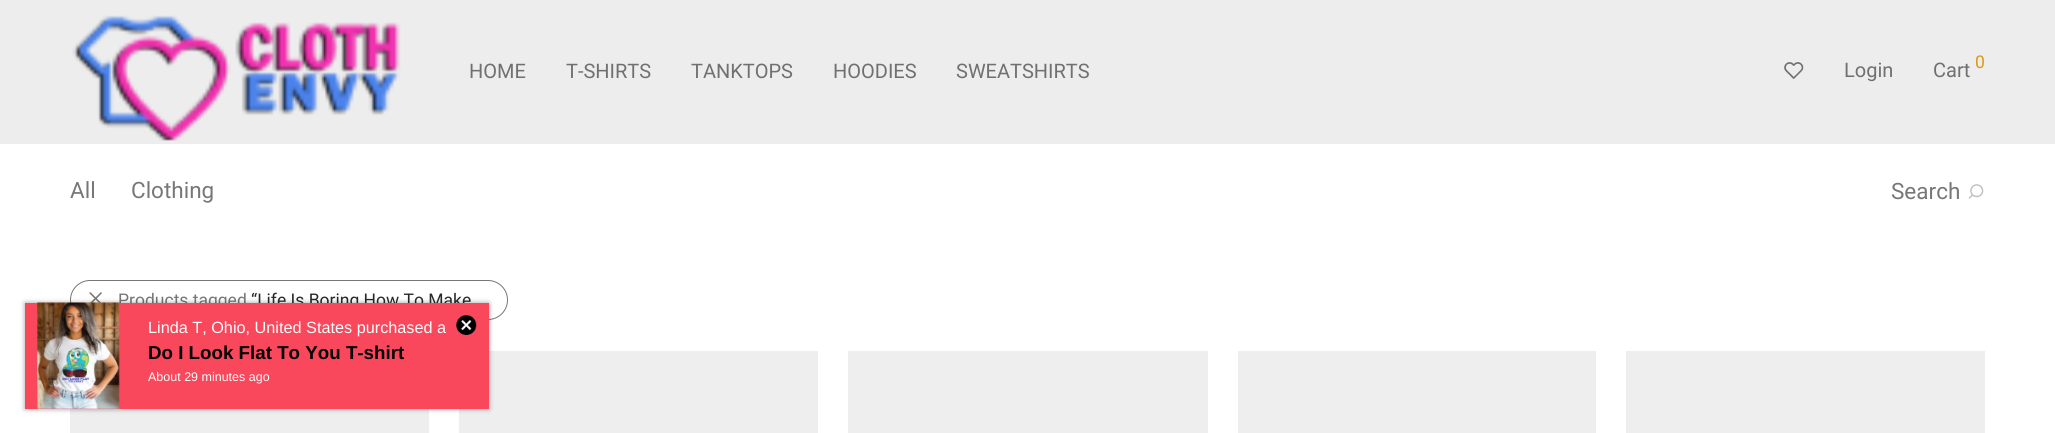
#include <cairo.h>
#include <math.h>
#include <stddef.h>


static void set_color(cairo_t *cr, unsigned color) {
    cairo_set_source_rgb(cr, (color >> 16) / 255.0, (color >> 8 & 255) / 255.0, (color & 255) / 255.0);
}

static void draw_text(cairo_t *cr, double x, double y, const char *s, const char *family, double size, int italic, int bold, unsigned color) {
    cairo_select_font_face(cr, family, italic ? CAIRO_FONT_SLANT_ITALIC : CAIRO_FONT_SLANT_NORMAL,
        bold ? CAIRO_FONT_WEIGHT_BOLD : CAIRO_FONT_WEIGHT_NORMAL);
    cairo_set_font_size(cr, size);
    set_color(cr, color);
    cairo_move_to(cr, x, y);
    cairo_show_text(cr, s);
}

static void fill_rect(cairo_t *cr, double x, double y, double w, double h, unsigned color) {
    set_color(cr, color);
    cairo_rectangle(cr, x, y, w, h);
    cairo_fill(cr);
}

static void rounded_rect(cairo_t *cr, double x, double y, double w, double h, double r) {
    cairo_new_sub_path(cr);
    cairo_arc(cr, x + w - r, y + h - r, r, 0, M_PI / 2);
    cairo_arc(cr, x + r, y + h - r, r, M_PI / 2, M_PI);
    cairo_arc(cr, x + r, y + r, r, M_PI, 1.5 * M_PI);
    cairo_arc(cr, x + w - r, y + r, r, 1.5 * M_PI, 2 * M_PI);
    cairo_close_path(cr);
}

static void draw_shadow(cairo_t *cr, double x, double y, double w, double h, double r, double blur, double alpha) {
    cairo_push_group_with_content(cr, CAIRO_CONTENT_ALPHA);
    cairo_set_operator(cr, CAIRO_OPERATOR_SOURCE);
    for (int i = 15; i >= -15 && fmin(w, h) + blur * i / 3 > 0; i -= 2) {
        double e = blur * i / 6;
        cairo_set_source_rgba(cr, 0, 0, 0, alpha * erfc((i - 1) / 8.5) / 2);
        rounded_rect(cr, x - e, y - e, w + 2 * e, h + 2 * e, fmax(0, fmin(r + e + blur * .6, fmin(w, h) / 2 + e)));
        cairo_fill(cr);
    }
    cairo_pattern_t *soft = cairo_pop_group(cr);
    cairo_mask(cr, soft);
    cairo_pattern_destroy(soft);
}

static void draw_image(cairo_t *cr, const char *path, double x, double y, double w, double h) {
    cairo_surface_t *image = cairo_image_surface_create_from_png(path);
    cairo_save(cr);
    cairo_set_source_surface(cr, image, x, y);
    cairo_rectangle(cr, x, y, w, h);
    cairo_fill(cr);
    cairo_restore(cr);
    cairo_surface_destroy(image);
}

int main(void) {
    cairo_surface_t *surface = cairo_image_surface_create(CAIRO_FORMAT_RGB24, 2055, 433);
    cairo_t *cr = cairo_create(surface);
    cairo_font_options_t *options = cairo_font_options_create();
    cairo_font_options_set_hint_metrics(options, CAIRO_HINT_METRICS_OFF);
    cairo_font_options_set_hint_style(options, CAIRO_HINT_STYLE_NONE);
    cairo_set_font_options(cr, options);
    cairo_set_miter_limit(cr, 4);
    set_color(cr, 0xFFFFFF);
    cairo_paint(cr);
    fill_rect(cr, 0, 0, 2055, 144, 0xEDEDED);
    draw_image(cr, "assets/img1.png", 72, 15, 329, 126);
    draw_text(cr, 469, 78, "HOME", "Roboto", 20, 0, 0, 0x707070);
    draw_text(cr, 566, 78, "T-SHIRTS", "Roboto", 20, 0, 0, 0x707070);
    draw_text(cr, 691, 78, "TANKTOPS", "Roboto", 20, 0, 0, 0x707070);
    draw_text(cr, 833, 78, "HOODIES", "Roboto", 20, 0, 0, 0x707070);
    draw_text(cr, 956, 78, "SWEATSHIRTS", "Roboto", 20, 0, 0, 0x707070);
    draw_image(cr, "assets/img2.png", 1784, 62, 20, 17);
    draw_text(cr, 1844, 77, "Login", "Roboto", 20, 0, 0, 0x707070);
    draw_text(cr, 1933, 77, "Cart", "Roboto", 20, 0, 0, 0x707070);
    draw_text(cr, 1975, 68, "0", "Roboto", 17.5, 0, 0, 0xDC9814);
    draw_text(cr, 70, 198, "All", "Roboto", 22.5, 0, 0, 0x777777);
    draw_text(cr, 131, 198, "Clothing", "Roboto", 22.5, 0, 0, 0x777777);
    draw_text(cr, 1891, 199, "Search", "Roboto", 22.5, 0, 0, 0x777777);
    draw_image(cr, "assets/img3.png", 1968, 184, 16, 15);
    rounded_rect(cr, 70.5, 280.5, 437, 39, 19.5);
    cairo_set_line_width(cr, 1);
    cairo_stroke(cr);
    draw_image(cr, "assets/img4.png", 89, 292, 13, 11);
    draw_text(cr, 118, 306, "Products tagged", "Roboto", 17.5, 0, 0, 0x777777);
    draw_text(cr, 251, 306, "“Life Is Boring How To Make", "Roboto", 17.5, 0, 0, 0x282828);
    fill_rect(cr, 70, 409, 359, 24, 0xEEEEEE);
    fill_rect(cr, 459, 351, 359, 82, 0xEEEEEE);
    fill_rect(cr, 848, 351, 360, 82, 0xEEEEEE);
    fill_rect(cr, 1238, 351, 358, 82, 0xEEEEEE);
    fill_rect(cr, 1626, 351, 359, 82, 0xEEEEEE);
    set_color(cr, 0x000000);
    draw_shadow(cr, 25, 303, 464, 106, 0, 2.5, 0.4);
    fill_rect(cr, 25, 303, 464, 106, 0xF9475C);
    draw_image(cr, "assets/img5.png", 37, 302, 83, 107);
    draw_text(cr, 148, 333, "Linda T, Ohio, United States purchased a", "Liberation Sans", 16.25, 0, 0, 0xFCFCFC);
    draw_text(cr, 148, 359, "Do I Look Flat To You T-shirt", "Liberation Sans", 18.75, 0, 1, 0x020202);
    draw_text(cr, 148, 381, "About 29 minutes ago", "Liberation Sans", 12.5, 0, 0, 0xFCFCFC);
    draw_image(cr, "assets/img6.png", 456, 315, 21, 20);
    cairo_surface_write_to_png(surface, "output.png");
    cairo_font_options_destroy(options);
    cairo_destroy(cr);
    cairo_surface_destroy(surface);
    return 0;
}
